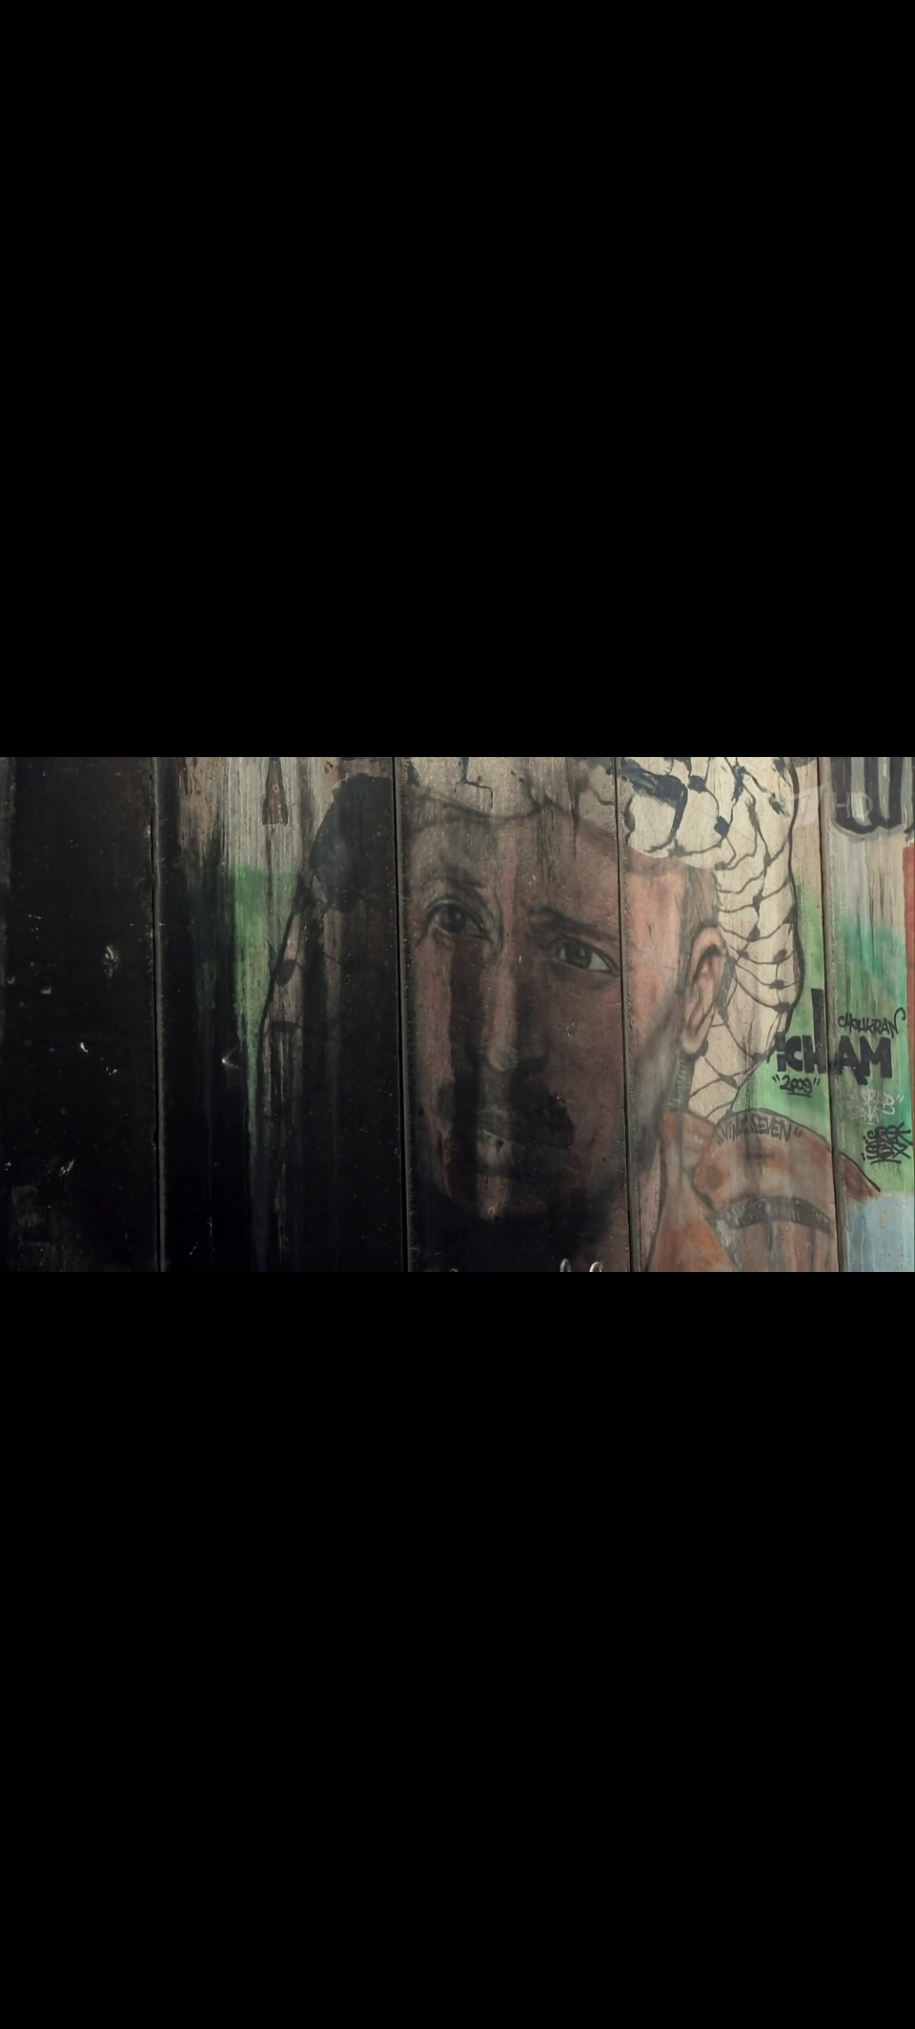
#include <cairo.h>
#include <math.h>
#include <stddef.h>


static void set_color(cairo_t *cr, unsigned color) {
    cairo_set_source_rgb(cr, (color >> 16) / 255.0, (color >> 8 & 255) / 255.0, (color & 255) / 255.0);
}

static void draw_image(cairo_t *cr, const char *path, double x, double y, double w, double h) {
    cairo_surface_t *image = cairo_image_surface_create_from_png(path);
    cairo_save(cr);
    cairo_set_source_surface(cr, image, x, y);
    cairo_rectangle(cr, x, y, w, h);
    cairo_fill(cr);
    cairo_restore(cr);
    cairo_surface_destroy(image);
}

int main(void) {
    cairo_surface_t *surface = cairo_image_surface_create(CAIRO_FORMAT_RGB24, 915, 2029);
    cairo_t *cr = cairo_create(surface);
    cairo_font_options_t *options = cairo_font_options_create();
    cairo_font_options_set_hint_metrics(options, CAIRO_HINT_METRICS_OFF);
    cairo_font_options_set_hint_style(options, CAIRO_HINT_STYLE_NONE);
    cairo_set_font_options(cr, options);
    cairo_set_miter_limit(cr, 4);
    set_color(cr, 0x000000);
    cairo_paint(cr);
    draw_image(cr, "assets/img1.png", 0, 757, 915, 515);
    cairo_surface_write_to_png(surface, "output.png");
    cairo_font_options_destroy(options);
    cairo_destroy(cr);
    cairo_surface_destroy(surface);
    return 0;
}
